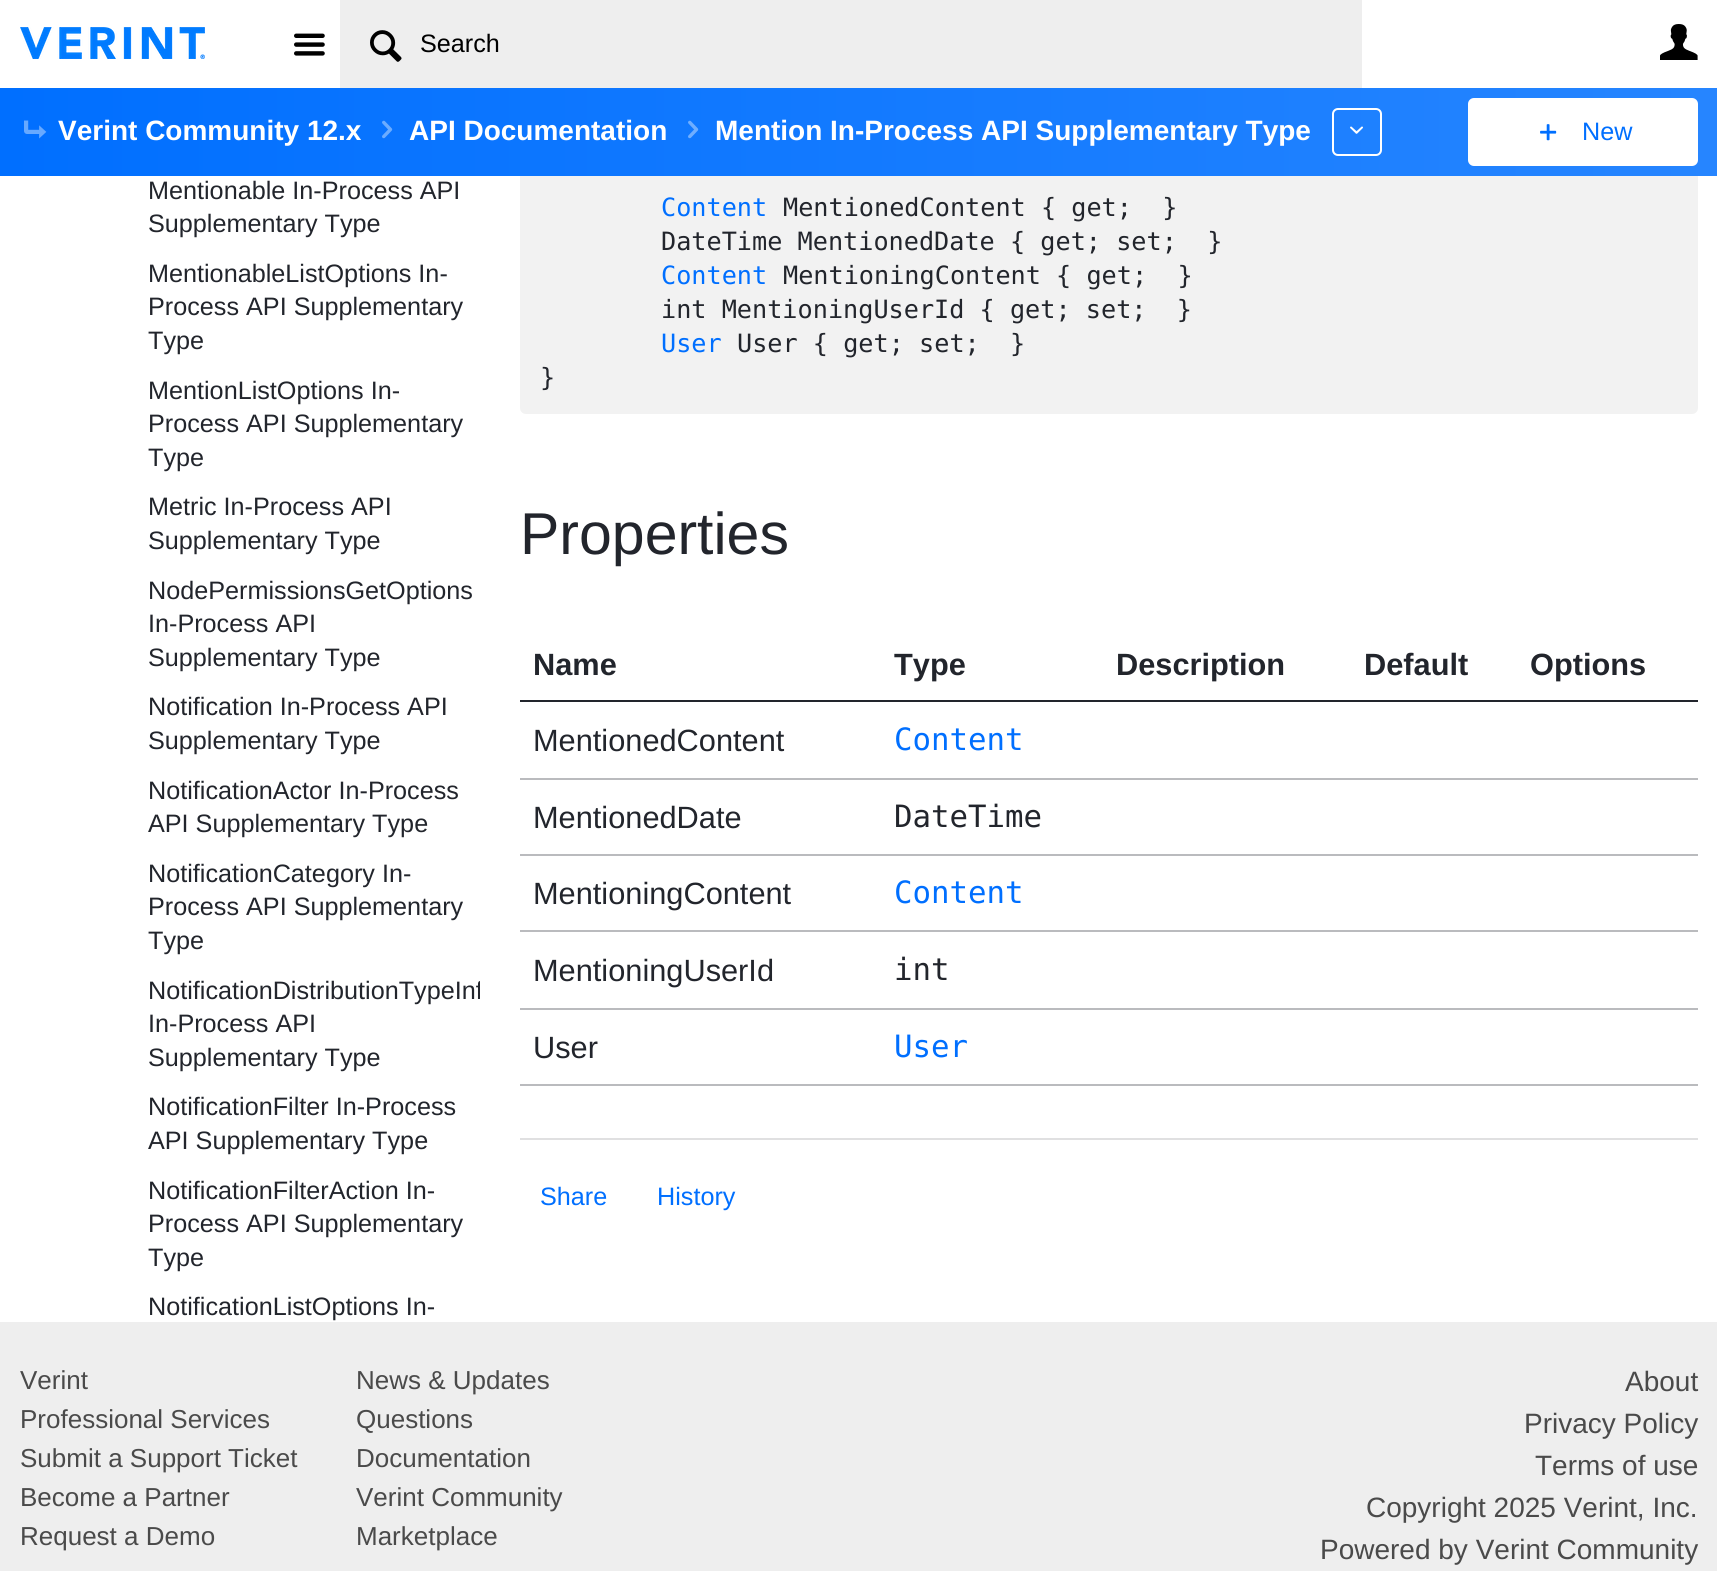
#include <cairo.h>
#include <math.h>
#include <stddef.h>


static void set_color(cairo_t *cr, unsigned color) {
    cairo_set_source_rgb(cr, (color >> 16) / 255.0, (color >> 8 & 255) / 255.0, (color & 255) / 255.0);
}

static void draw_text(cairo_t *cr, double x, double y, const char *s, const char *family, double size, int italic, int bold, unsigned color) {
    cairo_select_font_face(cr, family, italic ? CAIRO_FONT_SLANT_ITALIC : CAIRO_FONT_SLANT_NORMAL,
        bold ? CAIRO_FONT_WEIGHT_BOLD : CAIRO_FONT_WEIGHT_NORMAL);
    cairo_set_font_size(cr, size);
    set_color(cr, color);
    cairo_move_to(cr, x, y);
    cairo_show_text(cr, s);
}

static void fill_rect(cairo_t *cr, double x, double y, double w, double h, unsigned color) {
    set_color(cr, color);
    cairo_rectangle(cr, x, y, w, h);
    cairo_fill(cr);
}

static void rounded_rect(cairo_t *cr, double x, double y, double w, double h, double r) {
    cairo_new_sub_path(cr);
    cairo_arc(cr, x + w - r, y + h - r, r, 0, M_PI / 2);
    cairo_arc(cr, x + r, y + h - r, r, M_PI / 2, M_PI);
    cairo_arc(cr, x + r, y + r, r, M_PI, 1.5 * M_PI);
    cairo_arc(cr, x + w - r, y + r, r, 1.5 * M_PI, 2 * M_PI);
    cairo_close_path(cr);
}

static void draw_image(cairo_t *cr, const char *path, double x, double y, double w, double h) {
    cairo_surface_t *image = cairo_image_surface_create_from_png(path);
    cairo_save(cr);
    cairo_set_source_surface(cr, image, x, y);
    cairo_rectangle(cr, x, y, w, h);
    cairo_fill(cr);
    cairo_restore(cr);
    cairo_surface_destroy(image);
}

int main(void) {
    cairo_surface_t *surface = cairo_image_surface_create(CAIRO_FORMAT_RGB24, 1717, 1571);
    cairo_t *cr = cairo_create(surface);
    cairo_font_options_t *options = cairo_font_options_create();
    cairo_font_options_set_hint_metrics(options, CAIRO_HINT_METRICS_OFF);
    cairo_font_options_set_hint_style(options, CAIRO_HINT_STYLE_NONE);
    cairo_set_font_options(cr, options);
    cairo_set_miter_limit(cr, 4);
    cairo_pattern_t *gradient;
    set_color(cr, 0xFFFFFF);
    cairo_paint(cr);
    draw_image(cr, "assets/img1.png", 20, 27, 185, 32);
    draw_image(cr, "assets/img2.png", 294, 33, 31, 23);
    fill_rect(cr, 340, 0, 1022, 88, 0xEEEEEE);
    draw_image(cr, "assets/img3.png", 370, 30, 32, 32);
    draw_text(cr, 420, 52, "Search", "Liberation Sans", 25.2, 0, 0, 0x000000);
    draw_image(cr, "assets/img4.png", 1660, 24, 38, 36);
    set_color(cr, 0xF2F2F2);
    rounded_rect(cr, 520, 102, 1178, 312, 6);
    cairo_fill(cr);
    gradient = cairo_pattern_create_linear(0, 132, 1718, 132);
    cairo_pattern_add_color_stop_rgba(gradient, 0, 0, 0.435, 1, 1);
    cairo_pattern_add_color_stop_rgba(gradient, 1, 0.149, 0.522, 1, 1);
    cairo_set_source(cr, gradient);
    cairo_pattern_destroy(gradient);
    cairo_rectangle(cr, 0, 88, 1717, 88);
    cairo_fill(cr);
    draw_image(cr, "assets/img5.png", 24, 120, 23, 19);
    draw_text(cr, 58, 140, "Verint Community 12.x", "Liberation Sans", 28, 0, 1, 0xFFFFFF);
    draw_image(cr, "assets/img6.png", 382, 120, 11, 19);
    draw_text(cr, 409, 140, "API Documentation", "Liberation Sans", 28, 0, 1, 0xFFFFFF);
    draw_image(cr, "assets/img7.png", 688, 120, 11, 19);
    draw_text(cr, 715, 140, "Mention In-Process API Supplementary Type", "Liberation Sans", 28, 0, 1, 0xFFFFFF);
    rounded_rect(cr, 1333, 109, 48, 46, 5);
    cairo_stroke(cr);
    draw_image(cr, "assets/img8.png", 1350, 126, 13, 8);
    rounded_rect(cr, 1468, 98, 230, 68, 6);
    cairo_fill(cr);
    draw_image(cr, "assets/img9.png", 1540, 124, 17, 17);
    draw_text(cr, 1582, 140, "New", "Liberation Sans", 25.2, 0, 0, 0x006FFF);
    draw_text(cr, 148, 199, "Mentionable In-Process API", "Liberation Sans", 25.2, 0, 0, 0x22252C);
    draw_text(cr, 148, 232, "Supplementary Type", "Liberation Sans", 25.2, 0, 0, 0x22252C);
    draw_text(cr, 148, 282, "MentionableListOptions In-", "Liberation Sans", 25.2, 0, 0, 0x22252C);
    draw_text(cr, 148, 315, "Process API Supplementary", "Liberation Sans", 25.2, 0, 0, 0x22252C);
    draw_text(cr, 148, 349, "Type", "Liberation Sans", 25.2, 0, 0, 0x22252C);
    draw_text(cr, 148, 399, "MentionListOptions In-", "Liberation Sans", 25.2, 0, 0, 0x22252C);
    draw_text(cr, 148, 432, "Process API Supplementary", "Liberation Sans", 25.2, 0, 0, 0x22252C);
    draw_text(cr, 148, 466, "Type", "Liberation Sans", 25.2, 0, 0, 0x22252C);
    draw_text(cr, 148, 515, "Metric In-Process API", "Liberation Sans", 25.2, 0, 0, 0x22252C);
    draw_text(cr, 148, 549, "Supplementary Type", "Liberation Sans", 25.2, 0, 0, 0x22252C);
    draw_text(cr, 148, 599, "NodePermissionsGetOptions", "Liberation Sans", 25.2, 0, 0, 0x22252C);
    draw_text(cr, 148, 632, "In-Process API", "Liberation Sans", 25.2, 0, 0, 0x22252C);
    draw_text(cr, 148, 666, "Supplementary Type", "Liberation Sans", 25.2, 0, 0, 0x22252C);
    draw_text(cr, 148, 715, "Notification In-Process API", "Liberation Sans", 25.2, 0, 0, 0x22252C);
    draw_text(cr, 148, 749, "Supplementary Type", "Liberation Sans", 25.2, 0, 0, 0x22252C);
    draw_text(cr, 148, 799, "NotificationActor In-Process", "Liberation Sans", 25.2, 0, 0, 0x22252C);
    draw_text(cr, 148, 832, "API Supplementary Type", "Liberation Sans", 25.2, 0, 0, 0x22252C);
    draw_text(cr, 148, 882, "NotificationCategory In-", "Liberation Sans", 25.2, 0, 0, 0x22252C);
    draw_text(cr, 148, 915, "Process API Supplementary", "Liberation Sans", 25.2, 0, 0, 0x22252C);
    draw_text(cr, 148, 949, "Type", "Liberation Sans", 25.2, 0, 0, 0x22252C);
    cairo_save(cr);
    cairo_rectangle(cr, 20, 0, 460, 1376);
    cairo_clip(cr);
    draw_text(cr, 148, 999, "NotificationDistributionTypeInf", "Liberation Sans", 25.2, 0, 0, 0x22252C);
    cairo_restore(cr);
    draw_text(cr, 148, 1032, "In-Process API", "Liberation Sans", 25.2, 0, 0, 0x22252C);
    draw_text(cr, 148, 1066, "Supplementary Type", "Liberation Sans", 25.2, 0, 0, 0x22252C);
    draw_text(cr, 148, 1115, "NotificationFilter In-Process", "Liberation Sans", 25.2, 0, 0, 0x22252C);
    draw_text(cr, 148, 1149, "API Supplementary Type", "Liberation Sans", 25.2, 0, 0, 0x22252C);
    draw_text(cr, 148, 1199, "NotificationFilterAction In-", "Liberation Sans", 25.2, 0, 0, 0x22252C);
    draw_text(cr, 148, 1232, "Process API Supplementary", "Liberation Sans", 25.2, 0, 0, 0x22252C);
    draw_text(cr, 148, 1266, "Type", "Liberation Sans", 25.2, 0, 0, 0x22252C);
    draw_text(cr, 148, 1315, "NotificationListOptions In-", "Liberation Sans", 25.2, 0, 0, 0x22252C);
    draw_text(cr, 661, 216, "Content", "DejaVu Sans Mono", 25.2, 0, 0, 0x006FFF);
    draw_text(cr, 783, 216, "MentionedContent { get;  }", "DejaVu Sans Mono", 25.2, 0, 0, 0x22252C);
    draw_text(cr, 661, 250, "DateTime MentionedDate { get; set;  }", "DejaVu Sans Mono", 25.2, 0, 0, 0x22252C);
    draw_text(cr, 661, 284, "Content", "DejaVu Sans Mono", 25.2, 0, 0, 0x006FFF);
    draw_text(cr, 783, 284, "MentioningContent { get;  }", "DejaVu Sans Mono", 25.2, 0, 0, 0x22252C);
    draw_text(cr, 661, 318, "int MentioningUserId { get; set;  }", "DejaVu Sans Mono", 25.2, 0, 0, 0x22252C);
    draw_text(cr, 661, 352, "User", "DejaVu Sans Mono", 25.2, 0, 0, 0x006FFF);
    draw_text(cr, 737, 352, "User { get; set;  }", "DejaVu Sans Mono", 25.2, 0, 0, 0x22252C);
    draw_text(cr, 540, 386, "}", "DejaVu Sans Mono", 25.2, 0, 0, 0x22252C);
    draw_text(cr, 520, 554, "Properties", "Liberation Sans", 59, 0, 0, 0x22252C);
    draw_text(cr, 533, 675, "Name", "Liberation Sans", 30.75, 0, 1, 0x22252C);
    draw_text(cr, 894, 675, "Type", "Liberation Sans", 30.75, 0, 1, 0x22252C);
    draw_text(cr, 1116, 675, "Description", "Liberation Sans", 30.75, 0, 1, 0x22252C);
    draw_text(cr, 1364, 675, "Default", "Liberation Sans", 30.75, 0, 1, 0x22252C);
    fill_rect(cr, 520, 700, 1178, 2, 0x22252C);
    draw_text(cr, 1530, 675, "Options", "Liberation Sans", 30.75, 0, 1, 0x22252C);
    draw_text(cr, 533, 751, "MentionedContent", "Liberation Sans", 30.75, 0, 0, 0x22252C);
    draw_text(cr, 894, 750, "Content", "DejaVu Sans Mono", 30.75, 0, 0, 0x006FFF);
    fill_rect(cr, 520, 778, 1178, 2, 0xBABBBE);
    draw_text(cr, 533, 828, "MentionedDate", "Liberation Sans", 30.75, 0, 0, 0x22252C);
    draw_text(cr, 894, 827, "DateTime", "DejaVu Sans Mono", 30.75, 0, 0, 0x22252C);
    fill_rect(cr, 520, 854, 1178, 2, 0xBABBBE);
    draw_text(cr, 533, 904, "MentioningContent", "Liberation Sans", 30.75, 0, 0, 0x22252C);
    draw_text(cr, 894, 903, "Content", "DejaVu Sans Mono", 30.75, 0, 0, 0x006FFF);
    fill_rect(cr, 520, 930, 1178, 2, 0xBABBBE);
    draw_text(cr, 533, 981, "MentioningUserId", "Liberation Sans", 30.75, 0, 0, 0x22252C);
    draw_text(cr, 894, 980, "int", "DejaVu Sans Mono", 30.75, 0, 0, 0x22252C);
    fill_rect(cr, 520, 1008, 1178, 2, 0xBABBBE);
    draw_text(cr, 533, 1058, "User", "Liberation Sans", 30.75, 0, 0, 0x22252C);
    draw_text(cr, 894, 1057, "User", "DejaVu Sans Mono", 30.75, 0, 0, 0x006FFF);
    fill_rect(cr, 520, 1084, 1178, 2, 0xBABBBE);
    fill_rect(cr, 520, 1138, 1178, 2, 0xE0E0E1);
    draw_text(cr, 540, 1205, "Share", "Liberation Sans", 25.2, 0, 0, 0x006FFF);
    draw_text(cr, 657, 1205, "History", "Liberation Sans", 25.2, 0, 0, 0x006FFF);
    fill_rect(cr, 0, 1322, 1717, 249, 0xEEEEEE);
    draw_text(cr, 20, 1389, "Verint", "Liberation Sans", 26, 0, 0, 0x4A4A4A);
    draw_text(cr, 20, 1428, "Professional Services", "Liberation Sans", 26, 0, 0, 0x4A4A4A);
    draw_text(cr, 20, 1467, "Submit a Support Ticket", "Liberation Sans", 26, 0, 0, 0x4A4A4A);
    draw_text(cr, 20, 1506, "Become a Partner", "Liberation Sans", 26, 0, 0, 0x4A4A4A);
    draw_text(cr, 20, 1545, "Request a Demo", "Liberation Sans", 26, 0, 0, 0x4A4A4A);
    draw_text(cr, 356, 1389, "News & Updates", "Liberation Sans", 26, 0, 0, 0x4A4A4A);
    draw_text(cr, 356, 1428, "Questions", "Liberation Sans", 26, 0, 0, 0x4A4A4A);
    draw_text(cr, 356, 1467, "Documentation", "Liberation Sans", 26, 0, 0, 0x4A4A4A);
    draw_text(cr, 356, 1506, "Verint Community", "Liberation Sans", 26, 0, 0, 0x4A4A4A);
    draw_text(cr, 356, 1545, "Marketplace", "Liberation Sans", 26, 0, 0, 0x4A4A4A);
    draw_text(cr, 1625, 1391, "About", "Liberation Sans", 28, 0, 0, 0x4A4A4A);
    draw_text(cr, 1524, 1433, "Privacy Policy", "Liberation Sans", 28, 0, 0, 0x4A4A4A);
    draw_text(cr, 1535, 1475, "Terms of use", "Liberation Sans", 28, 0, 0, 0x4A4A4A);
    draw_text(cr, 1366, 1517, "Copyright 2025 Verint, Inc.", "Liberation Sans", 28, 0, 0, 0x4A4A4A);
    draw_text(cr, 1320, 1559, "Powered by Verint Community", "Liberation Sans", 28, 0, 0, 0x4A4A4A);
    cairo_surface_write_to_png(surface, "output.png");
    cairo_font_options_destroy(options);
    cairo_destroy(cr);
    cairo_surface_destroy(surface);
    return 0;
}
